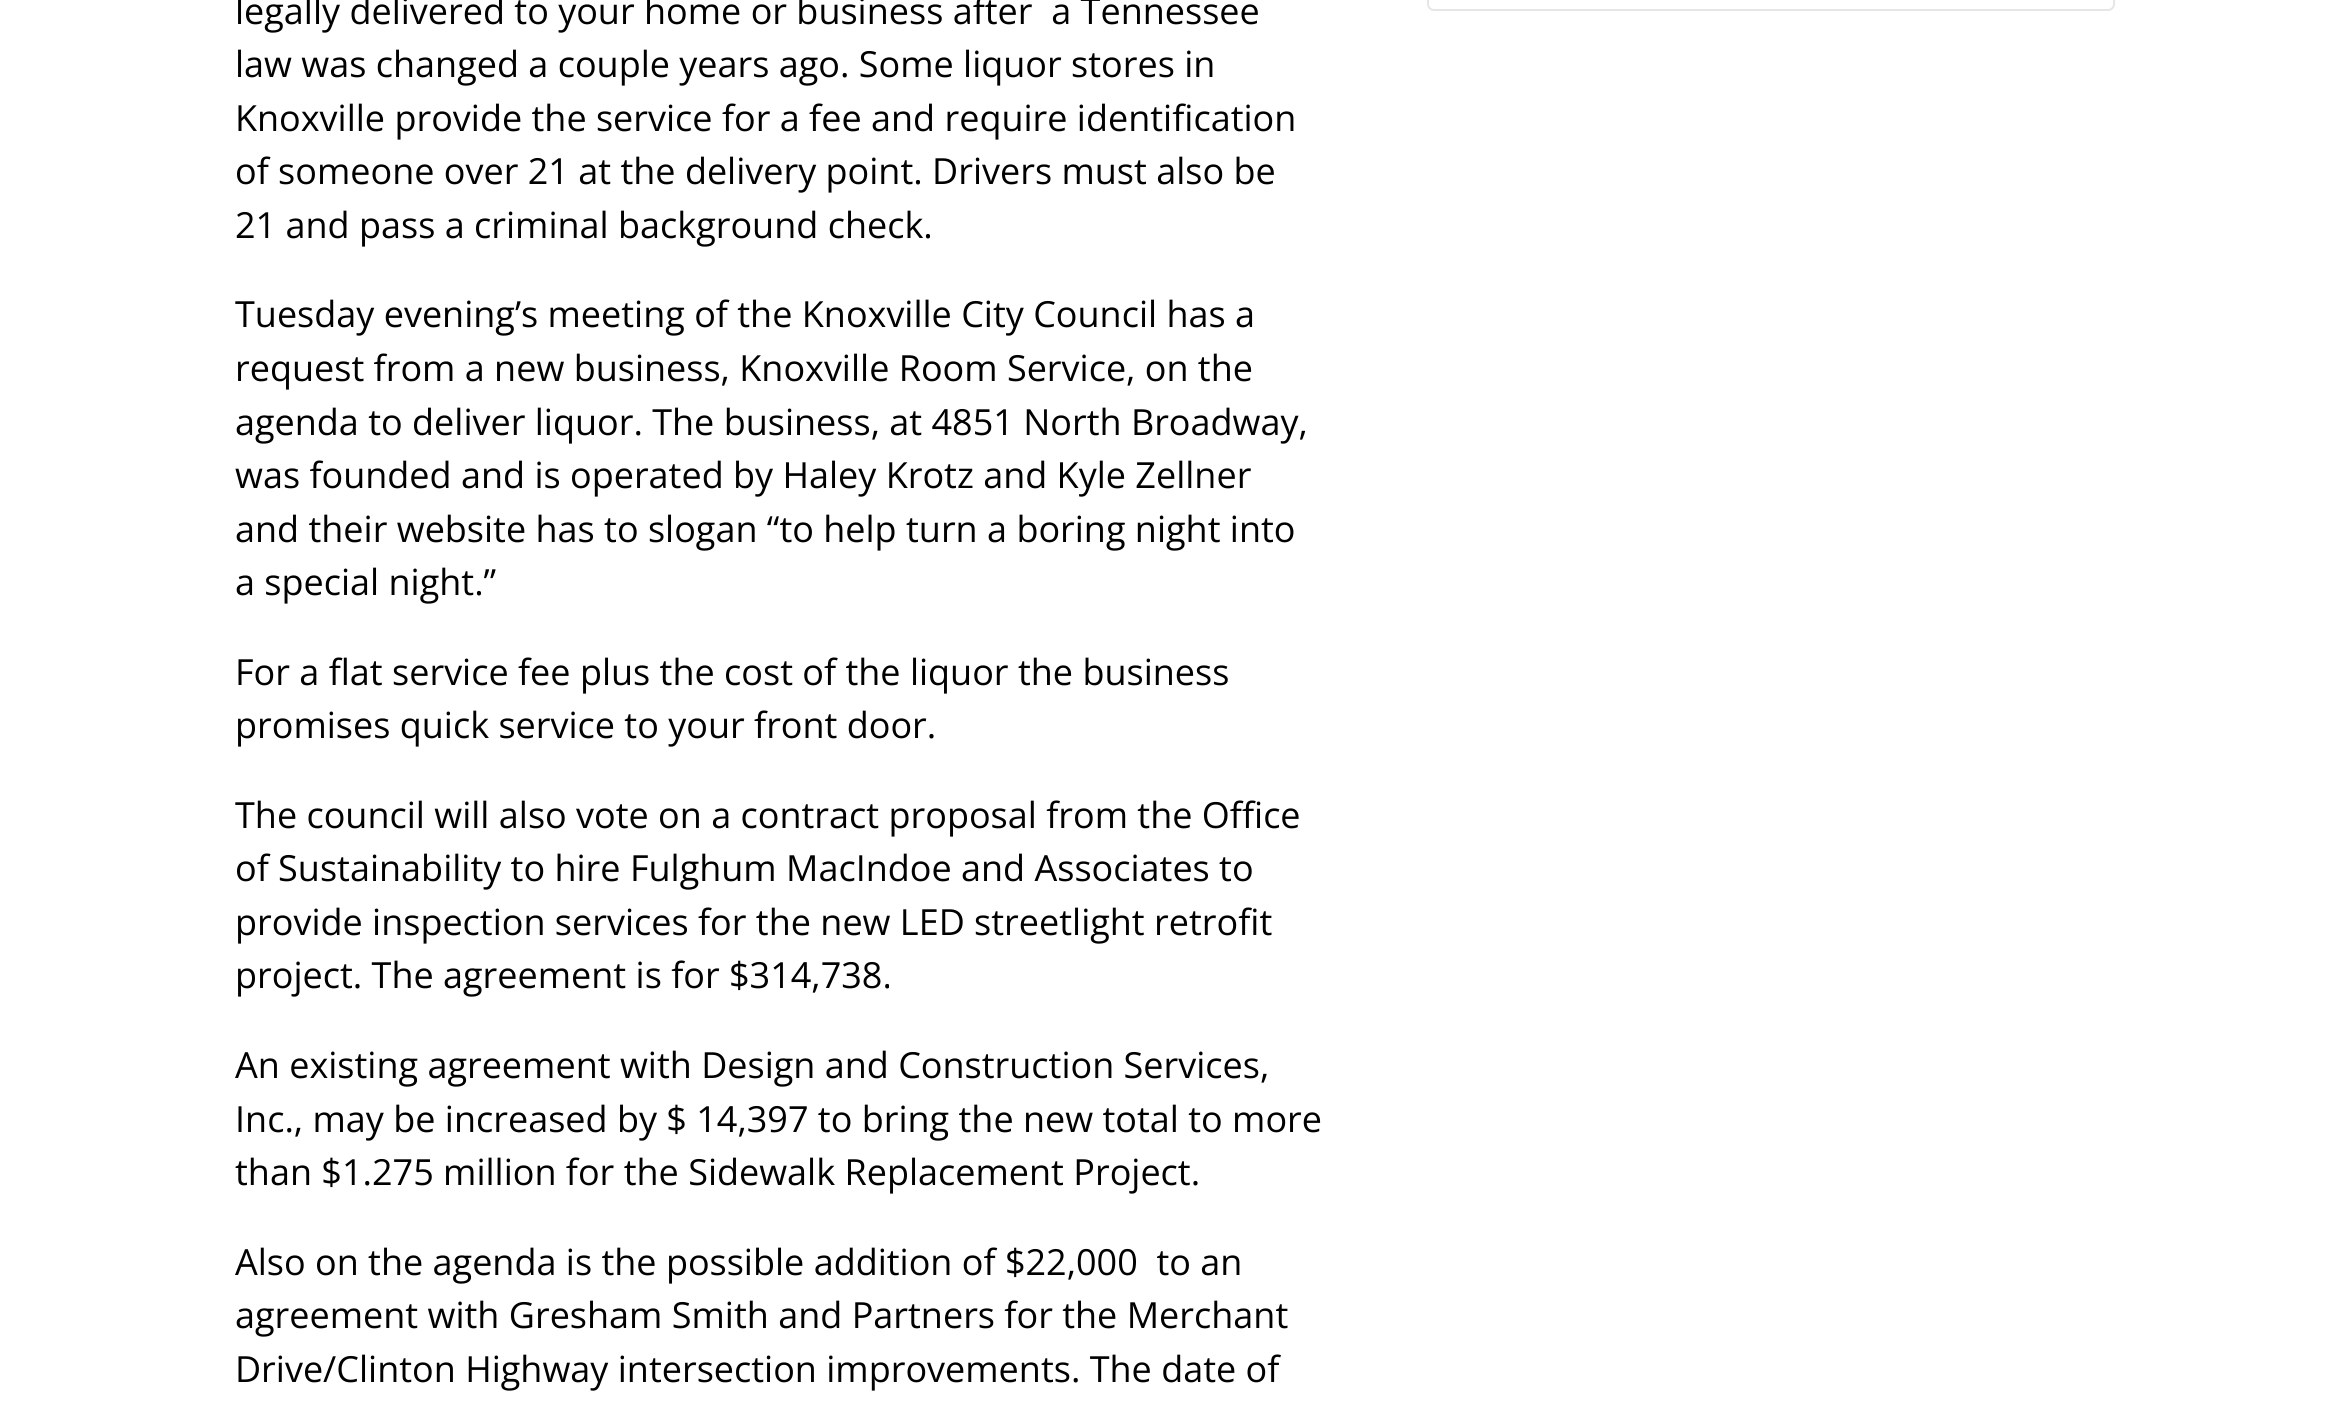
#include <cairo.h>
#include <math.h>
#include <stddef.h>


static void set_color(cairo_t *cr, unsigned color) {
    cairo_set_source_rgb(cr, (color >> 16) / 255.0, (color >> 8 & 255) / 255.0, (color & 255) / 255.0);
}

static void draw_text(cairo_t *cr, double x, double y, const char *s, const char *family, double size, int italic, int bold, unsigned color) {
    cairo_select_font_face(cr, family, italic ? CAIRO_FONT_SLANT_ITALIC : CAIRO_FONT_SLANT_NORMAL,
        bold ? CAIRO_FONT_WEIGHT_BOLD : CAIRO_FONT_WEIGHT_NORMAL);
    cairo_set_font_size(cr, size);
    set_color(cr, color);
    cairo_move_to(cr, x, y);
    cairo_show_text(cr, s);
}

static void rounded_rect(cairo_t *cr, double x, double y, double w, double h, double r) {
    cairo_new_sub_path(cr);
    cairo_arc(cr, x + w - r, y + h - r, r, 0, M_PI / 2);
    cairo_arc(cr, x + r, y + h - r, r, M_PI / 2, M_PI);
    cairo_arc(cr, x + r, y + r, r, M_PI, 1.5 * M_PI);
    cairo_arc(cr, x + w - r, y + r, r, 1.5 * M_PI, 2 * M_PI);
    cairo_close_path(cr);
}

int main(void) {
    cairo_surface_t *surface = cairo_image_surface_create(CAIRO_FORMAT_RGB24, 2351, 1420);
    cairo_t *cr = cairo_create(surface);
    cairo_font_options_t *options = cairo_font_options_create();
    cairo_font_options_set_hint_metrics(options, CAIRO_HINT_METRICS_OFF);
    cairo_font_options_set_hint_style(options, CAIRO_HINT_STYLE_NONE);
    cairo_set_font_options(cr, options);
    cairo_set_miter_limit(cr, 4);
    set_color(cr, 0xFFFFFF);
    cairo_paint(cr);
    draw_text(cr, 235, 24, "legally delivered to your home or business after  a Tennessee", "Open Sans", 36, 0, 0, 0x000000);
    draw_text(cr, 235, 77, "law was changed a couple years ago. Some liquor stores in", "Open Sans", 36, 0, 0, 0x000000);
    draw_text(cr, 235, 131, "Knoxville provide the service for a fee and require identification", "Open Sans", 36, 0, 0, 0x000000);
    draw_text(cr, 235, 184, "of someone over 21 at the delivery point. Drivers must also be", "Open Sans", 36, 0, 0, 0x000000);
    draw_text(cr, 235, 238, "21 and pass a criminal background check.", "Open Sans", 36, 0, 0, 0x000000);
    draw_text(cr, 235, 327, "Tuesday evening’s meeting of the Knoxville City Council has a", "Open Sans", 36, 0, 0, 0x000000);
    draw_text(cr, 235, 381, "request from a new business, Knoxville Room Service, on the", "Open Sans", 36, 0, 0, 0x000000);
    draw_text(cr, 235, 435, "agenda to deliver liquor. The business, at 4851 North Broadway,", "Open Sans", 36, 0, 0, 0x000000);
    draw_text(cr, 235, 488, "was founded and is operated by Haley Krotz and Kyle Zellner", "Open Sans", 36, 0, 0, 0x000000);
    draw_text(cr, 235, 542, "and their website has to slogan “to help turn a boring night into", "Open Sans", 36, 0, 0, 0x000000);
    draw_text(cr, 235, 595, "a special night.”", "Open Sans", 36, 0, 0, 0x000000);
    draw_text(cr, 235, 685, "For a flat service fee plus the cost of the liquor the business", "Open Sans", 36, 0, 0, 0x000000);
    draw_text(cr, 235, 738, "promises quick service to your front door.", "Open Sans", 36, 0, 0, 0x000000);
    draw_text(cr, 235, 828, "The council will also vote on a contract proposal from the Office", "Open Sans", 36, 0, 0, 0x000000);
    draw_text(cr, 235, 881, "of Sustainability to hire Fulghum MacIndoe and Associates to", "Open Sans", 36, 0, 0, 0x000000);
    draw_text(cr, 235, 935, "provide inspection services for the new LED streetlight retrofit", "Open Sans", 36, 0, 0, 0x000000);
    draw_text(cr, 235, 988, "project. The agreement is for $314,738.", "Open Sans", 36, 0, 0, 0x000000);
    draw_text(cr, 235, 1078, "An existing agreement with Design and Construction Services,", "Open Sans", 36, 0, 0, 0x000000);
    draw_text(cr, 235, 1132, "Inc., may be increased by $ 14,397 to bring the new total to more", "Open Sans", 36, 0, 0, 0x000000);
    draw_text(cr, 235, 1185, "than $1.275 million for the Sidewalk Replacement Project.", "Open Sans", 36, 0, 0, 0x000000);
    draw_text(cr, 235, 1275, "Also on the agenda is the possible addition of $22,000  to an", "Open Sans", 36, 0, 0, 0x000000);
    draw_text(cr, 235, 1328, "agreement with Gresham Smith and Partners for the Merchant", "Open Sans", 36, 0, 0, 0x000000);
    draw_text(cr, 235, 1382, "Drive/Clinton Highway intersection improvements. The date of", "Open Sans", 36, 0, 0, 0x000000);
    rounded_rect(cr, 1428, -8, 686, 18, 6);
    set_color(cr, 0xE6E6E6);
    cairo_stroke(cr);
    cairo_surface_write_to_png(surface, "output.png");
    cairo_font_options_destroy(options);
    cairo_destroy(cr);
    cairo_surface_destroy(surface);
    return 0;
}
